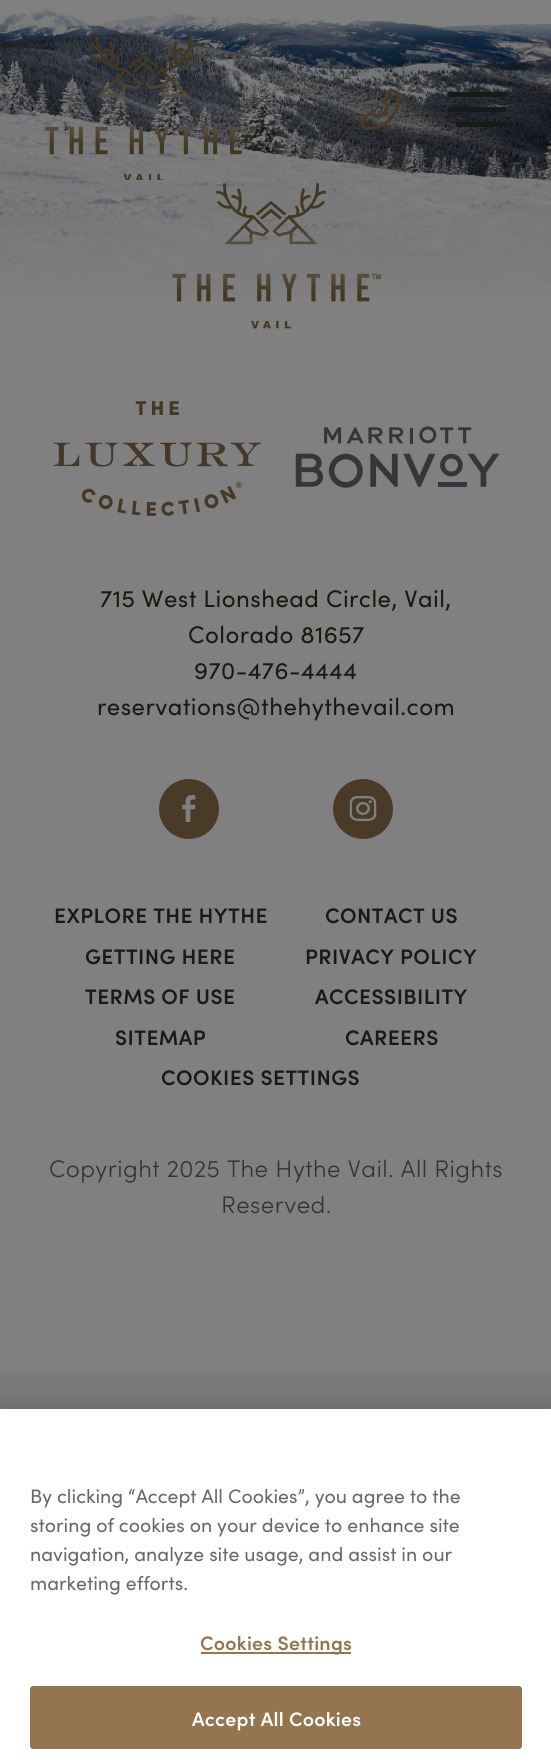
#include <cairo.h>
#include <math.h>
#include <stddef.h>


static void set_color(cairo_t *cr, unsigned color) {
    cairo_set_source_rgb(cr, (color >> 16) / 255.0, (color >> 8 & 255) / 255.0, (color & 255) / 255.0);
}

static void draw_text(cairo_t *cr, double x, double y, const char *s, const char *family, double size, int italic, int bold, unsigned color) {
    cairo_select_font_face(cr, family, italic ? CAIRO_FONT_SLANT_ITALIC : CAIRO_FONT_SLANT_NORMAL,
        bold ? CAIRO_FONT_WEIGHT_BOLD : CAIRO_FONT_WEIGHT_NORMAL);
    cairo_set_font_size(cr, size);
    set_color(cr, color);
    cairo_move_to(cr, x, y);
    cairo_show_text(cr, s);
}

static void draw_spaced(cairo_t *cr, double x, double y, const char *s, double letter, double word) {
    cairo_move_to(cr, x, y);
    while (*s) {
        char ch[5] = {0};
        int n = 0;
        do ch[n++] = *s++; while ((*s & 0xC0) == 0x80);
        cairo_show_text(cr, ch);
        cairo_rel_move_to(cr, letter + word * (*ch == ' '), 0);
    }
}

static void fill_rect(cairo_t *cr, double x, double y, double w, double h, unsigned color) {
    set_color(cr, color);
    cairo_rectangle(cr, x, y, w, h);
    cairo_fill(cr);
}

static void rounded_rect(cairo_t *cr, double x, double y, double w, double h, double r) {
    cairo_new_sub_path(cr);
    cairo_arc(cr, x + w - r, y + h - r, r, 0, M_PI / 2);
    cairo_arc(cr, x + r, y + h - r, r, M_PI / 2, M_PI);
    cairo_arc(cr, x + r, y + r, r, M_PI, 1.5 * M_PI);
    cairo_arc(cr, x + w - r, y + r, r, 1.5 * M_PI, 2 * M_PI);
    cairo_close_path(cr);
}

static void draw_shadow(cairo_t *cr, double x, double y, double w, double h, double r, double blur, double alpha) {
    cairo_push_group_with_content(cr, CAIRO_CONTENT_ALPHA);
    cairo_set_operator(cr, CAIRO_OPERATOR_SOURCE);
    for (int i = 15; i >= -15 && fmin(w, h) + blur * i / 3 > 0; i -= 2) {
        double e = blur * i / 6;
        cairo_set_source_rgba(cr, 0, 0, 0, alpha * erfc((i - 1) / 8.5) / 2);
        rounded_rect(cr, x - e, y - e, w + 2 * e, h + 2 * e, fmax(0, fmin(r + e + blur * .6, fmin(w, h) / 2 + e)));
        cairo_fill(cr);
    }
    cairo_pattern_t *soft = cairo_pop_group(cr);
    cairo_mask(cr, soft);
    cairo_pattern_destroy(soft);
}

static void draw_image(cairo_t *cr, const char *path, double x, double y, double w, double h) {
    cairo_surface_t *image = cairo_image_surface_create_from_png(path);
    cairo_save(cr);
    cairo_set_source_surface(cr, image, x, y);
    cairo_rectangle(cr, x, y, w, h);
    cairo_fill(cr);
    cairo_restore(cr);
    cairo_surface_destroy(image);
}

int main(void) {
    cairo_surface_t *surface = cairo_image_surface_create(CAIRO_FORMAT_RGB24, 551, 1763);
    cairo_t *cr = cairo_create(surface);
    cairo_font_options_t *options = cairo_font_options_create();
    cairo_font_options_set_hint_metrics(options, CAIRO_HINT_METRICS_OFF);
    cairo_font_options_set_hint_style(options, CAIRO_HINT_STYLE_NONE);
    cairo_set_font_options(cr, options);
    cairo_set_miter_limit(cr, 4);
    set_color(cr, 0x797A7A);
    cairo_paint(cr);
    fill_rect(cr, 0, 0, 551, 1371, 0x808080);
    draw_image(cr, "assets/img3.png", 0, 7, 551, 288);
    draw_image(cr, "assets/img1.png", 45, 36, 209, 144);
    draw_image(cr, "assets/img2.png", 359, 88, 42, 42);
    set_color(cr, 0x191917);
    rounded_rect(cr, 447, 92, 60, 5, 2.5);
    cairo_fill(cr);
    rounded_rect(cr, 447, 107, 60, 5, 2.5);
    cairo_fill(cr);
    rounded_rect(cr, 456, 122, 51, 5, 2.5);
    cairo_fill(cr);
    draw_image(cr, "assets/img4.png", 172, 183, 209, 146);
    draw_image(cr, "assets/img5.png", 53, 401, 208, 115);
    draw_image(cr, "assets/img6.png", 295, 426, 205, 62);
    cairo_select_font_face(cr, "Sofia", CAIRO_FONT_SLANT_NORMAL, CAIRO_FONT_WEIGHT_NORMAL);
    cairo_set_font_size(cr, 24);
    set_color(cr, 0x1A1811);
    draw_spaced(cr, 100, 607, "715 West Lionshead Circle, Vail,", 0.45, 0);
    draw_spaced(cr, 188, 643, "Colorado 81657", 0.45, 0);
    set_color(cr, 0x191917);
    draw_spaced(cr, 194, 679, "970-476-4444", 0.45, 0);
    draw_spaced(cr, 97, 715, "reservations@thehythevail.com", 0.45, 0);
    set_color(cr, 0x4A3B28);
    cairo_new_path(cr);
    cairo_arc(cr, 189, 809, 30, 0, 2 * M_PI);
    cairo_fill(cr);
    draw_image(cr, "assets/img7.png", 182, 795, 14, 27);
    cairo_arc(cr, 363, 809, 30, 0, 2 * M_PI);
    cairo_fill(cr);
    draw_image(cr, "assets/img8.png", 349, 796, 28, 25);
    cairo_select_font_face(cr, "Sofia SemiBold", CAIRO_FONT_SLANT_NORMAL, CAIRO_FONT_WEIGHT_NORMAL);
    cairo_set_font_size(cr, 21);
    set_color(cr, 0x191917);
    draw_spaced(cr, 54, 923, "EXPLORE THE HYTHE", 0.45, 0);
    draw_spaced(cr, 325, 923, "CONTACT US", 0.45, 0);
    draw_spaced(cr, 85, 964, "GETTING HERE", 0.45, 0);
    draw_spaced(cr, 305, 964, "PRIVACY POLICY", 0.45, 0);
    draw_spaced(cr, 85, 1004, "TERMS OF USE", 0.45, 0);
    draw_spaced(cr, 315, 1004, "ACCESSIBILITY", 0.45, 0);
    draw_spaced(cr, 115, 1045, "SITEMAP", 0.45, 0);
    draw_spaced(cr, 345, 1045, "CAREERS", 0.45, 0);
    draw_spaced(cr, 161, 1085, "COOKIES SETTINGS", 0.45, 0);
    cairo_select_font_face(cr, "Sofia Light", CAIRO_FONT_SLANT_NORMAL, CAIRO_FONT_WEIGHT_NORMAL);
    cairo_set_font_size(cr, 24);
    set_color(cr, 0x34332F);
    draw_spaced(cr, 49, 1177, "Copyright 2025 The Hythe Vail. All Rights", 0.45, 0);
    draw_spaced(cr, 221, 1213, "Reserved.", 0.45, 0);
    set_color(cr, 0x000000);
    draw_shadow(cr, 0, 1409, 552, 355, 0, 13.5, 0.2);
    fill_rect(cr, 0, 1409, 551, 354, 0xFFFFFF);
    draw_text(cr, 30, 1503, "By clicking “Accept All Cookies”, you agree to the", "Sofia", 19.5, 0, 0, 0x696969);
    draw_text(cr, 30, 1532, "storing of cookies on your device to enhance site", "Sofia", 19.5, 0, 0, 0x696969);
    draw_text(cr, 30, 1561, "navigation, analyze site usage, and assist in our", "Sofia", 19.5, 0, 0, 0x696969);
    draw_text(cr, 30, 1590, "marketing efforts.", "Sofia", 19.5, 0, 0, 0x696969);
    fill_rect(cr, 201, 1652, 150, 2, 0x947550);
    cairo_select_font_face(cr, "Sofia SemiBold", CAIRO_FONT_SLANT_NORMAL, CAIRO_FONT_WEIGHT_NORMAL);
    draw_spaced(cr, 200, 1650, "Cookies Settings", 0.25, 0);
    rounded_rect(cr, 31, 1687, 490, 61, 2);
    cairo_fill_preserve(cr);
    cairo_stroke(cr);
    set_color(cr, 0xFFFFFF);
    draw_spaced(cr, 192, 1726, "Accept All Cookies", 0.25, 0);
    cairo_surface_write_to_png(surface, "output.png");
    cairo_font_options_destroy(options);
    cairo_destroy(cr);
    cairo_surface_destroy(surface);
    return 0;
}
